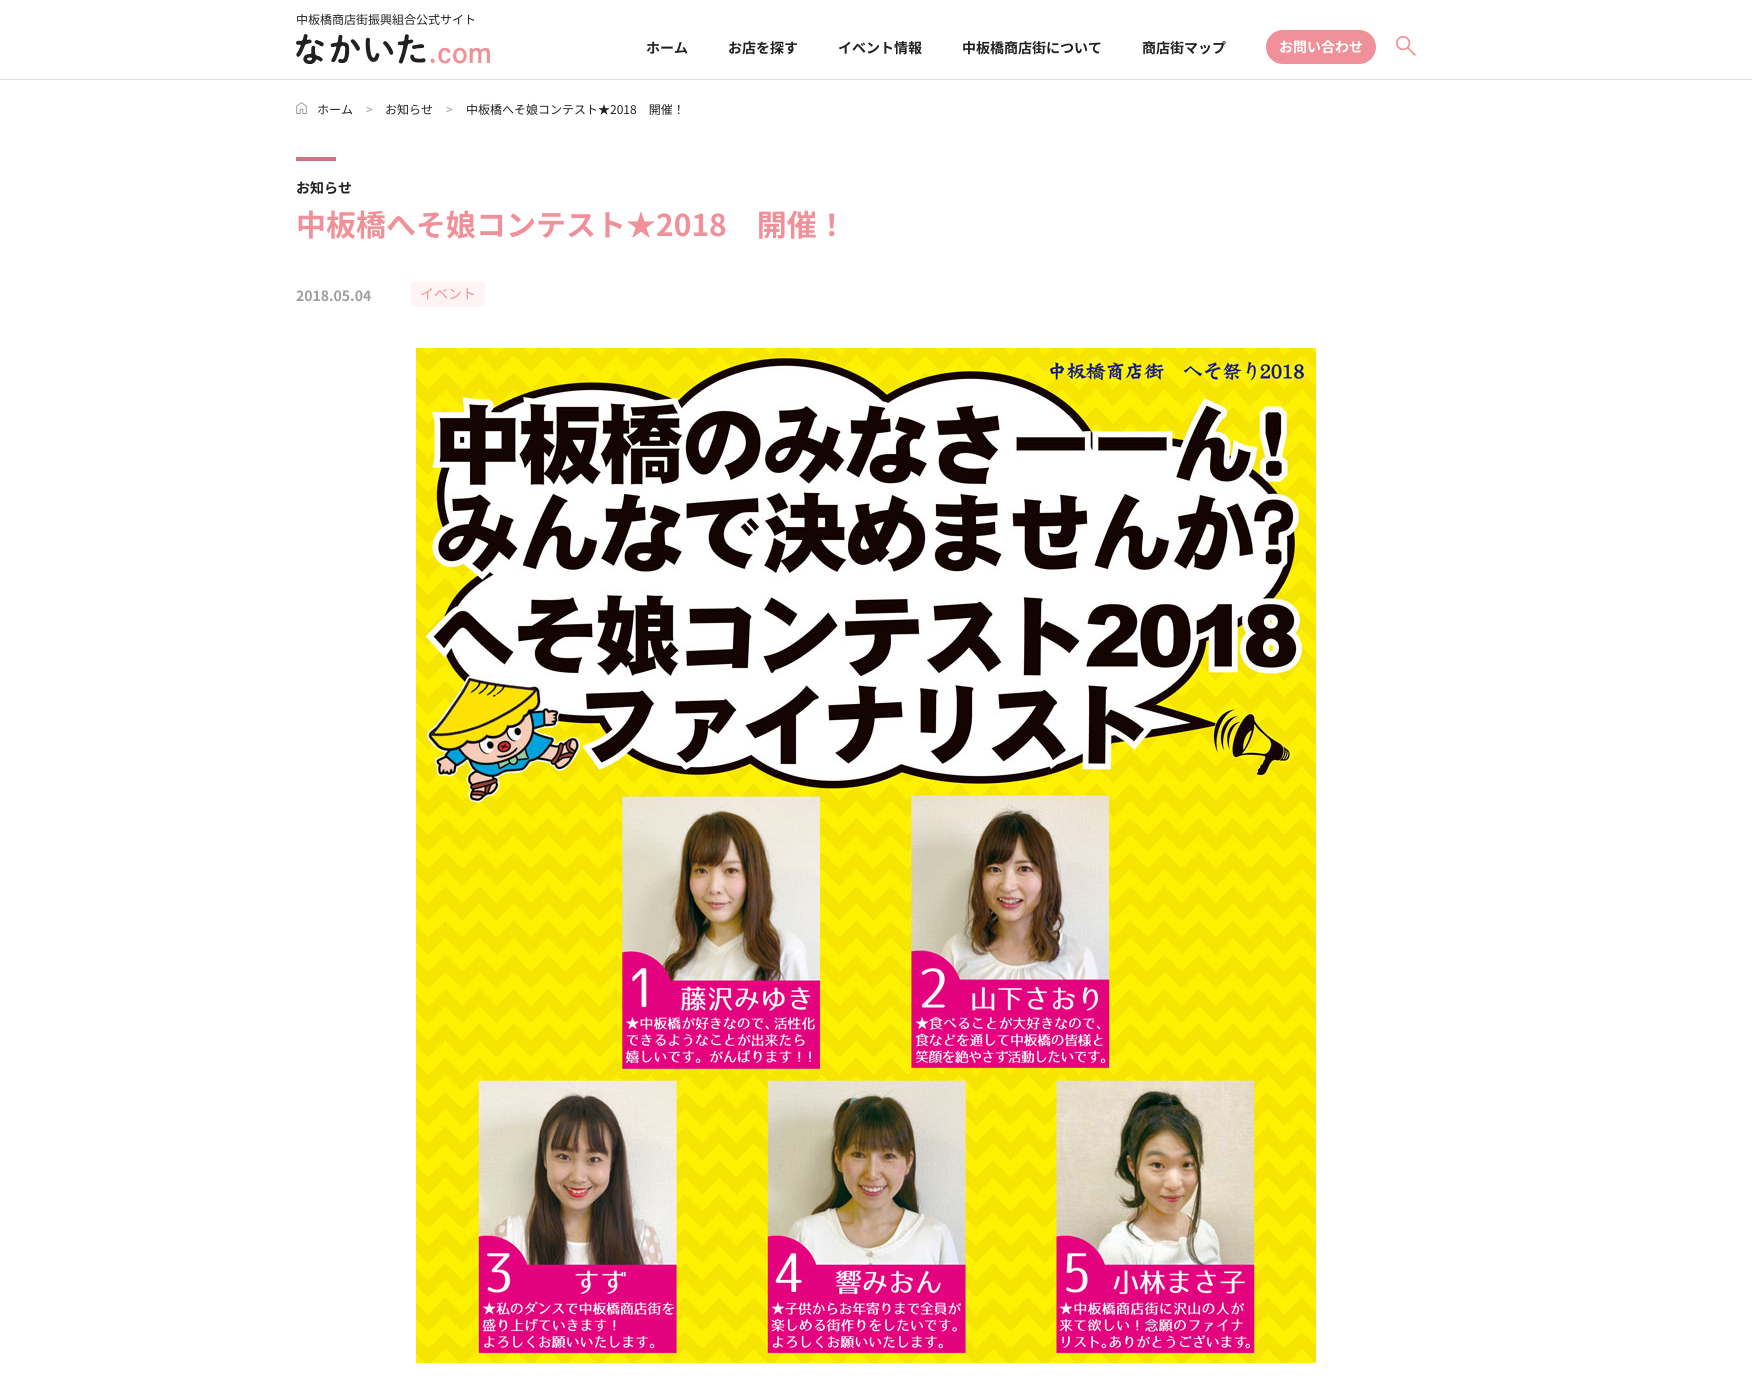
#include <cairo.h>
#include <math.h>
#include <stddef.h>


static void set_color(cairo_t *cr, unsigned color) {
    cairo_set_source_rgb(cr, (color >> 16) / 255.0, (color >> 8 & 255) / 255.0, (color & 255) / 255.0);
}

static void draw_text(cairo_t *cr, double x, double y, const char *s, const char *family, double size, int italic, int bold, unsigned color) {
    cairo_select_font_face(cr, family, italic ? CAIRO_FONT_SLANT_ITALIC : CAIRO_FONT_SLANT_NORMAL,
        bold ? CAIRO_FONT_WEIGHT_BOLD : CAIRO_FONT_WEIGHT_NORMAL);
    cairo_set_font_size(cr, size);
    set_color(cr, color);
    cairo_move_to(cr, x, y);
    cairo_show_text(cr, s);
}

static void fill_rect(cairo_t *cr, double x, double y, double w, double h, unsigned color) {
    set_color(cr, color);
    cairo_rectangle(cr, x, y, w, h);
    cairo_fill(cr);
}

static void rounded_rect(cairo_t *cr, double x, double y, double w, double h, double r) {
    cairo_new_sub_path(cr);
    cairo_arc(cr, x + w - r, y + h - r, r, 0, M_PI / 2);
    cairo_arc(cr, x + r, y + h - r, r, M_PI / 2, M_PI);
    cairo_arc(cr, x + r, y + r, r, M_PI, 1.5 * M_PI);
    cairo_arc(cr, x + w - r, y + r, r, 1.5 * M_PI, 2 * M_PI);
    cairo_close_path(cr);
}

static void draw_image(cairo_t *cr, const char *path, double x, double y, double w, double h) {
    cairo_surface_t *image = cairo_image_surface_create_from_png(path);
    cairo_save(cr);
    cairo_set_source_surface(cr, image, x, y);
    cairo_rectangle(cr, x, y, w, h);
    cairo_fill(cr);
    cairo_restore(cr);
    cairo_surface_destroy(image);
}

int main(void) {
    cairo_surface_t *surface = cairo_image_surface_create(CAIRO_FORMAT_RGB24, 1752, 1394);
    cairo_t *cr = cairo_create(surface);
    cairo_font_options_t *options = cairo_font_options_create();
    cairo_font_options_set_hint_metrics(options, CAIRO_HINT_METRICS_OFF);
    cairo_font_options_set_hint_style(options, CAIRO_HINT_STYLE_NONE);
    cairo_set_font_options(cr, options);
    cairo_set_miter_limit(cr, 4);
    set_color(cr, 0xFFFFFF);
    cairo_paint(cr);
    fill_rect(cr, 0, 79, 1752, 1, 0xE0E0E0);
    draw_text(cr, 296, 24, "中板橋商店街振興組合公式サイト", "Noto Sans JP", 12, 0, 0, 0x212121);
    draw_image(cr, "assets/img1.png", 296, 34, 194, 30);
    draw_text(cr, 646, 53, "ホーム", "Noto Sans JP", 14, 0, 1, 0x212121);
    draw_text(cr, 728, 53, "お店を探す", "Noto Sans JP", 14, 0, 1, 0x212121);
    draw_text(cr, 838, 53, "イベント情報", "Noto Sans JP", 14, 0, 1, 0x212121);
    draw_text(cr, 962, 53, "中板橋商店街について", "Noto Sans JP", 14, 0, 1, 0x212121);
    draw_text(cr, 1142, 53, "商店街マップ", "Noto Sans JP", 14, 0, 1, 0x212121);
    set_color(cr, 0xF09199);
    rounded_rect(cr, 1266, 30, 110, 34, 17);
    cairo_fill(cr);
    draw_text(cr, 1279, 52, "お問い合わせ", "Noto Sans JP", 14, 0, 1, 0xFFFFFF);
    draw_image(cr, "assets/img2.png", 1396, 36, 20, 20);
    draw_image(cr, "assets/img3.png", 296, 102, 11, 12);
    draw_text(cr, 317, 114, "ホーム", "Noto Sans JP", 12, 0, 0, 0x212121);
    draw_text(cr, 366, 114, ">", "Noto Sans JP", 12, 0, 0, 0x9E9E9E);
    draw_text(cr, 385, 114, "お知らせ", "Noto Sans JP", 12, 0, 0, 0x212121);
    draw_text(cr, 446, 114, ">", "Noto Sans JP", 12, 0, 0, 0x9E9E9E);
    draw_text(cr, 466, 114, "中板橋へそ娘コンテスト★2018　開催！", "Noto Sans JP", 12, 0, 0, 0x212121);
    fill_rect(cr, 296, 157, 40, 4, 0xC97586);
    draw_text(cr, 296, 193, "お知らせ", "Noto Sans JP", 14, 0, 1, 0x212121);
    draw_text(cr, 296, 236, "中板橋へそ娘コンテスト★2018　開催！", "Noto Sans JP", 30, 0, 1, 0xF09199);
    draw_text(cr, 296, 301, "2018.05.04", "Noto Sans JP", 14, 0, 1, 0x9E9E9E);
    set_color(cr, 0xFEF4F4);
    rounded_rect(cr, 411, 282, 74, 25, 4);
    cairo_fill(cr);
    draw_text(cr, 420, 299, "イベント", "Noto Sans JP", 14, 0, 0, 0xF09199);
    draw_image(cr, "assets/img4.png", 416, 348, 900, 1015);
    cairo_surface_write_to_png(surface, "output.png");
    cairo_font_options_destroy(options);
    cairo_destroy(cr);
    cairo_surface_destroy(surface);
    return 0;
}
